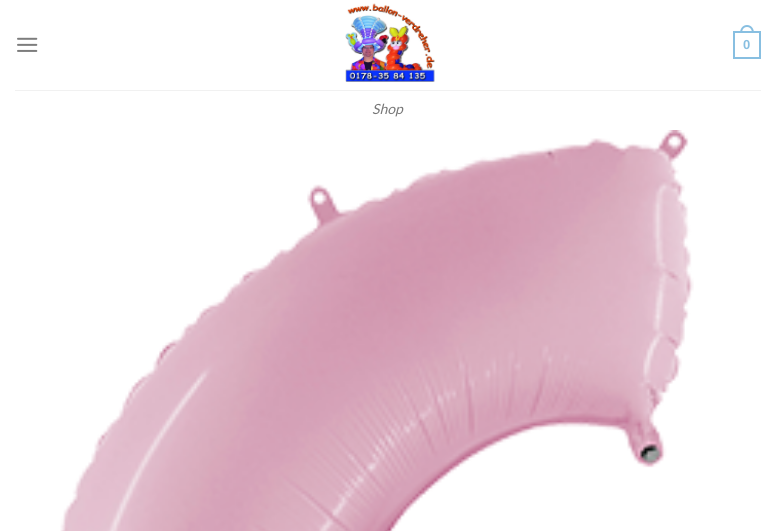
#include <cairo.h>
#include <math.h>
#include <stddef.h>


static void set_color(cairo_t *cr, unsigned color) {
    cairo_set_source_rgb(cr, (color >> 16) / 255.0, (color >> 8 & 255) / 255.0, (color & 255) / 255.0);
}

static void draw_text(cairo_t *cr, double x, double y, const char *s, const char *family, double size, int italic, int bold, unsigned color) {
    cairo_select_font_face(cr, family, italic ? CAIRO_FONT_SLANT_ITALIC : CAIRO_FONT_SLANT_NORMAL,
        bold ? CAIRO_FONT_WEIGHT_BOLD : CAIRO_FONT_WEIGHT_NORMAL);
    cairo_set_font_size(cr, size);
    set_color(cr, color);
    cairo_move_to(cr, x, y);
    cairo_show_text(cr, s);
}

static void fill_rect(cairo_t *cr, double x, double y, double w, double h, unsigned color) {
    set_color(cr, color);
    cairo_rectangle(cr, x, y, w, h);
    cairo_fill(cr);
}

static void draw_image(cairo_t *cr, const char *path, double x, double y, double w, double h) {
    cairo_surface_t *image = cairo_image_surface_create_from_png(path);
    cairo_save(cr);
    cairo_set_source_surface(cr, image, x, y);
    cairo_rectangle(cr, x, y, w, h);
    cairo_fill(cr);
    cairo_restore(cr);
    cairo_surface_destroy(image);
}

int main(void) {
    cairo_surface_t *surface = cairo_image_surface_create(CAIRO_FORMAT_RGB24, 776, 531);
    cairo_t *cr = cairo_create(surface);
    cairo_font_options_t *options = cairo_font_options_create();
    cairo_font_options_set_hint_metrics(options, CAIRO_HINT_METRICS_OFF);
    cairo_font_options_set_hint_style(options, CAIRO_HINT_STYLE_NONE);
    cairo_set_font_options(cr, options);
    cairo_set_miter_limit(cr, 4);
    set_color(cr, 0xFFFFFF);
    cairo_paint(cr);
    draw_image(cr, "assets/img1.png", 17, 37, 21, 15);
    cairo_rectangle(cr, 734, 32, 26, 26);
    set_color(cr, 0x88BFE1);
    cairo_stroke(cr);
    cairo_set_fill_rule(cr, CAIRO_FILL_RULE_EVEN_ODD);
    cairo_new_path(cr);
    cairo_move_to(cr, 747, 25);
    cairo_curve_to(cr, 751.5, 25, 754, 29, 754, 33);
    cairo_line_to(cr, 740, 33);
    cairo_curve_to(cr, 740, 29, 742.5, 25, 747, 25);
    cairo_close_path(cr);
    cairo_move_to(cr, 747, 27);
    cairo_curve_to(cr, 750.5, 27, 752, 30, 752, 33);
    cairo_line_to(cr, 742, 33);
    cairo_curve_to(cr, 742, 30, 743.5, 27, 747, 27);
    cairo_close_path(cr);
    cairo_fill(cr);
    draw_text(cr, 743, 49, "0", "Liberation Sans", 13, 0, 1, 0x88BFE1);
    draw_image(cr, "assets/img2.png", 345, 3, 90, 79);
    draw_text(cr, 372, 114, "Shop", "Lato", 14, 1, 0, 0x777777);
    fill_rect(cr, 15, 90, 746, 1, 0xF1F1F1);
    draw_image(cr, "assets/img3.png", 60, 130, 634, 401);
    cairo_surface_write_to_png(surface, "output.png");
    cairo_font_options_destroy(options);
    cairo_destroy(cr);
    cairo_surface_destroy(surface);
    return 0;
}
